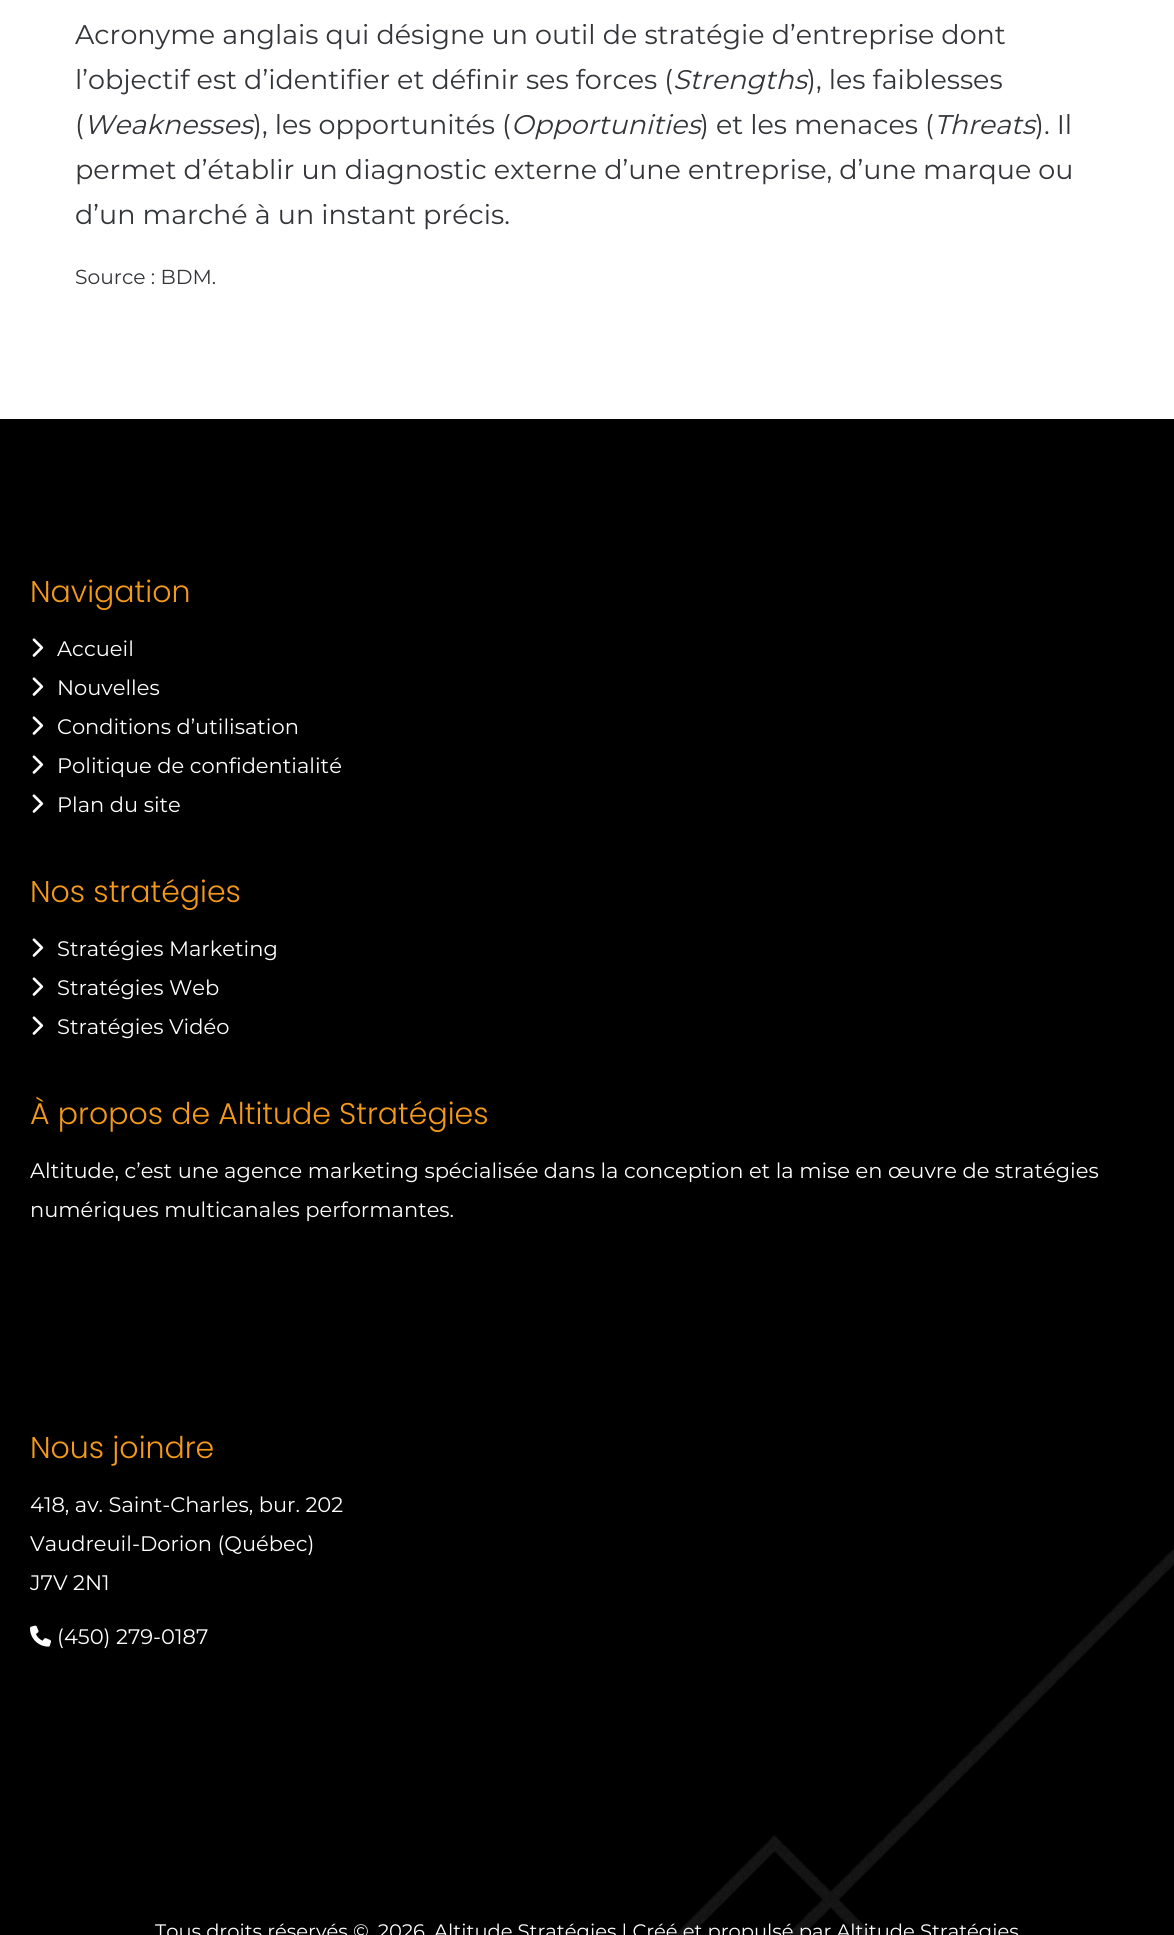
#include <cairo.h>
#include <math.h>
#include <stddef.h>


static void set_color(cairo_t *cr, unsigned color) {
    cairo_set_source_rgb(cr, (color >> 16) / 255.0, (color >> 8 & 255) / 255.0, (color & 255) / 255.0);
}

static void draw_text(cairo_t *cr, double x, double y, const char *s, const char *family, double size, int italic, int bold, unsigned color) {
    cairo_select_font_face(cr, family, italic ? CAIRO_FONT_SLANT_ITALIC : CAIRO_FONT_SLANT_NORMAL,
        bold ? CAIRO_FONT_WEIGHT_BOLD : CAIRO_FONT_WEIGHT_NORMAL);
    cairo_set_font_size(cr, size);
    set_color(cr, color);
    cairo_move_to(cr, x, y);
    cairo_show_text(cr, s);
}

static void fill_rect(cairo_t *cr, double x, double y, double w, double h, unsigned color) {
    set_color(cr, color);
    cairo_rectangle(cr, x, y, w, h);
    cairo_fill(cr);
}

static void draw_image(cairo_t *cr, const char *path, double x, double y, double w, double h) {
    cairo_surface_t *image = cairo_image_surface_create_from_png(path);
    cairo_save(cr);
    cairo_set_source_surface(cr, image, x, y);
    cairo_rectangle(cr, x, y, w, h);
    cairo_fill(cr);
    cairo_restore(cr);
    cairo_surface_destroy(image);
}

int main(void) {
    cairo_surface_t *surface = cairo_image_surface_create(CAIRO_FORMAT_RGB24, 1174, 1935);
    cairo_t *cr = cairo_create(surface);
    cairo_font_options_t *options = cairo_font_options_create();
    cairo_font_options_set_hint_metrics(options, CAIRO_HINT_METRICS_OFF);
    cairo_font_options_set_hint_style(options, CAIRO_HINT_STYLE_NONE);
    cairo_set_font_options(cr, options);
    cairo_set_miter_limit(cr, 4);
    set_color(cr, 0xFFFFFF);
    cairo_paint(cr);
    draw_text(cr, 75, 44, "Acronyme anglais qui désigne un outil de stratégie d’entreprise dont", "Montserrat Thin", 27, 0, 0, 0x333539);
    draw_text(cr, 75, 89, "l’objectif est d’identifier et définir ses forces (", "Montserrat Thin", 27, 0, 0, 0x333539);
    draw_text(cr, 673, 89, "Strengths", "Montserrat Thin", 27, 1, 0, 0x333539);
    draw_text(cr, 807, 89, "), les faiblesses", "Montserrat Thin", 27, 0, 0, 0x333539);
    draw_text(cr, 75, 134, "(", "Montserrat Thin", 27, 0, 0, 0x333539);
    draw_text(cr, 84, 134, "Weaknesses", "Montserrat Thin", 27, 1, 0, 0x333539);
    draw_text(cr, 253, 134, "), les opportunités (", "Montserrat Thin", 27, 0, 0, 0x333539);
    draw_text(cr, 511, 134, "Opportunities", "Montserrat Thin", 27, 1, 0, 0x333539);
    draw_text(cr, 700, 134, ") et les menaces (", "Montserrat Thin", 27, 0, 0, 0x333539);
    draw_text(cr, 934, 134, "Threats", "Montserrat Thin", 27, 1, 0, 0x333539);
    draw_text(cr, 1035, 134, "). Il", "Montserrat Thin", 27, 0, 0, 0x333539);
    draw_text(cr, 75, 179, "permet d’établir un diagnostic externe d’une entreprise, d’une marque ou", "Montserrat Thin", 27, 0, 0, 0x333539);
    draw_text(cr, 75, 224, "d’un marché à un instant précis.", "Montserrat Thin", 27, 0, 0, 0x333539);
    draw_text(cr, 75, 284, "Source : BDM.", "Montserrat Thin", 20.25, 0, 0, 0x333539);
    fill_rect(cr, 0, 419, 1174, 1516, 0x000000);
    draw_image(cr, "assets/img1.png", 675, 1548, 499, 387);
    draw_text(cr, 30, 602, "Navigation", "Poppins Light", 30, 0, 0, 0xF4991A);
    draw_image(cr, "assets/img2.png", 32, 638, 12, 19);
    draw_text(cr, 57, 656, "Accueil", "Montserrat Thin", 21, 0, 0, 0xFFFFFF);
    draw_image(cr, "assets/img2.png", 32, 677, 12, 19);
    draw_text(cr, 57, 695, "Nouvelles", "Montserrat Thin", 21, 0, 0, 0xFFFFFF);
    draw_image(cr, "assets/img2.png", 32, 716, 12, 19);
    draw_text(cr, 57, 734, "Conditions d’utilisation", "Montserrat Thin", 21, 0, 0, 0xFFFFFF);
    draw_image(cr, "assets/img2.png", 32, 755, 12, 19);
    draw_text(cr, 57, 773, "Politique de confidentialité", "Montserrat Thin", 21, 0, 0, 0xFFFFFF);
    draw_image(cr, "assets/img2.png", 32, 794, 12, 19);
    draw_text(cr, 57, 812, "Plan du site", "Montserrat Thin", 21, 0, 0, 0xFFFFFF);
    draw_text(cr, 30, 902, "Nos stratégies", "Poppins Light", 30, 0, 0, 0xF4991A);
    draw_image(cr, "assets/img2.png", 32, 938, 12, 19);
    draw_text(cr, 57, 956, "Stratégies Marketing", "Montserrat Thin", 21, 0, 0, 0xFFFFFF);
    draw_image(cr, "assets/img2.png", 32, 977, 12, 19);
    draw_text(cr, 57, 995, "Stratégies Web", "Montserrat Thin", 21, 0, 0, 0xFFFFFF);
    draw_image(cr, "assets/img2.png", 32, 1016, 12, 19);
    draw_text(cr, 57, 1034, "Stratégies Vidéo", "Montserrat Thin", 21, 0, 0, 0xFFFFFF);
    draw_text(cr, 30, 1124, "À propos de Altitude Stratégies", "Poppins Light", 30, 0, 0, 0xF4991A);
    draw_text(cr, 30, 1178, "Altitude, c’est une agence marketing spécialisée dans la conception et la mise en œuvre de stratégies", "Montserrat Thin", 21, 0, 0, 0xFFFFFF);
    draw_text(cr, 30, 1217, "numériques multicanales performantes.", "Montserrat Thin", 21, 0, 0, 0xFFFFFF);
    draw_text(cr, 30, 1458, "Nous joindre", "Poppins Light", 30, 0, 0, 0xF4991A);
    draw_text(cr, 30, 1512, "418, av. Saint-Charles, bur. 202", "Montserrat Thin", 21, 0, 0, 0xFFFFFF);
    draw_text(cr, 30, 1551, "Vaudreuil-Dorion (Québec)", "Montserrat Thin", 21, 0, 0, 0xFFFFFF);
    draw_text(cr, 30, 1590, "J7V 2N1", "Montserrat Thin", 21, 0, 0, 0xFFFFFF);
    draw_image(cr, "assets/img3.png", 30, 1625, 21, 22);
    draw_text(cr, 57, 1644, "(450) 279-0187", "Montserrat Thin", 21, 0, 0, 0xFFFFFF);
    draw_text(cr, 155, 1938, "Tous droits réservés ©. 2026. Altitude Stratégies | Créé et propulsé par Altitude Stratégies", "Montserrat Thin", 19.5, 0, 0, 0xFFFFFF);
    cairo_surface_write_to_png(surface, "output.png");
    cairo_font_options_destroy(options);
    cairo_destroy(cr);
    cairo_surface_destroy(surface);
    return 0;
}
